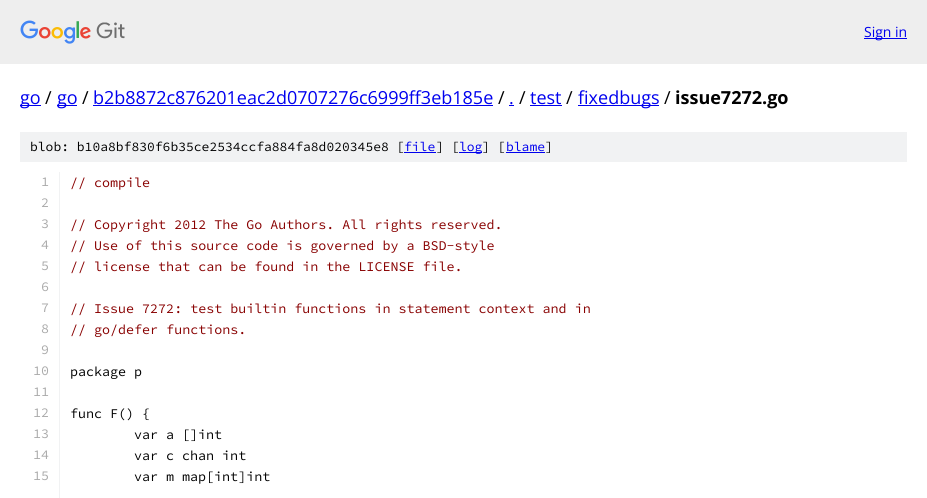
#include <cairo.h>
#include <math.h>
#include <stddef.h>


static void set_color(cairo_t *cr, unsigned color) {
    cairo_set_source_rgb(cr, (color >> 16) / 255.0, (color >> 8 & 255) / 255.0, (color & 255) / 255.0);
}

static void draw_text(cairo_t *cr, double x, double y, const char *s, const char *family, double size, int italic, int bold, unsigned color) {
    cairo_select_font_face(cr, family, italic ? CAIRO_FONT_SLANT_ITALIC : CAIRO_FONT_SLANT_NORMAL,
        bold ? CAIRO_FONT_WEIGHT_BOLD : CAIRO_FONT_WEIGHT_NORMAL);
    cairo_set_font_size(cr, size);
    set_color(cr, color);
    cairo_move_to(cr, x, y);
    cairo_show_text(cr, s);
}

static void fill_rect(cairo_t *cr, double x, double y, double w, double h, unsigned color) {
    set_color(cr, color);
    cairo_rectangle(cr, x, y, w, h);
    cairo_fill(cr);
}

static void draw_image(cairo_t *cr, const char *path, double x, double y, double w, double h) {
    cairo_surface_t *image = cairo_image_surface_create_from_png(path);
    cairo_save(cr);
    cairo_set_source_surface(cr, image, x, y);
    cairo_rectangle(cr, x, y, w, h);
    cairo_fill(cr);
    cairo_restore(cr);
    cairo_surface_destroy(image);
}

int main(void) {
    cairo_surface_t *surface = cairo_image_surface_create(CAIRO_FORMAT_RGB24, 927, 498);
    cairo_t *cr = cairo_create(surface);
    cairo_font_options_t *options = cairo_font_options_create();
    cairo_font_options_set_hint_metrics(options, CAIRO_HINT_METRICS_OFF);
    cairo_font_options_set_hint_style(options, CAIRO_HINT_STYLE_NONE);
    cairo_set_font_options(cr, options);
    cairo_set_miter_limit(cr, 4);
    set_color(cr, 0xFFFFFF);
    cairo_paint(cr);
    fill_rect(cr, 0, 0, 927, 64, 0xEEEEEE);
    draw_image(cr, "assets/img1.png", 20, 20, 105, 24);
    fill_rect(cr, 864, 38, 43, 1, 0x0000EE);
    draw_text(cr, 864, 37, "Sign in", "Open Sans", 14, 0, 0, 0x0000EE);
    fill_rect(cr, 20, 105, 21, 1, 0x0000EE);
    draw_text(cr, 20, 104, "go", "Open Sans", 18, 0, 0, 0x0000EE);
    draw_text(cr, 45, 104, "/", "Open Sans", 18, 0, 0, 0x000000);
    fill_rect(cr, 57, 105, 20, 1, 0x0000EE);
    draw_text(cr, 57, 104, "go", "Open Sans", 18, 0, 0, 0x0000EE);
    draw_text(cr, 82, 104, "/", "Open Sans", 18, 0, 0, 0x000000);
    draw_text(cr, 93, 104, "b2b8872c876201eac2d0707276c6999ff3eb185e", "Open Sans", 18, 0, 0, 0x0000EE);
    fill_rect(cr, 93, 105, 400, 1, 0x0000EE);
    draw_text(cr, 498, 104, "/", "Open Sans", 18, 0, 0, 0x000000);
    draw_text(cr, 509, 104, ".", "Open Sans", 18, 0, 0, 0x0000EE);
    fill_rect(cr, 509, 105, 5, 1, 0x0000EE);
    draw_text(cr, 519, 104, "/", "Open Sans", 18, 0, 0, 0x000000);
    draw_text(cr, 530, 104, "test", "Open Sans", 18, 0, 0, 0x0000EE);
    fill_rect(cr, 530, 105, 32, 1, 0x0000EE);
    draw_text(cr, 566, 104, "/", "Open Sans", 18, 0, 0, 0x000000);
    fill_rect(cr, 578, 105, 81, 1, 0x0000EE);
    draw_text(cr, 578, 104, "fixedbugs", "Open Sans", 18, 0, 0, 0x0000EE);
    draw_text(cr, 664, 104, "/", "Open Sans", 18, 0, 0, 0x000000);
    draw_text(cr, 675, 104, "issue7272.go", "Open Sans", 18, 0, 1, 0x000000);
    fill_rect(cr, 20, 132, 887, 30, 0xF1F2F3);
    draw_text(cr, 30, 151, "blob: b10a8bf830f6b35ce2534ccfa884fa8d020345e8 [", "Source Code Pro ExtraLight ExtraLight", 13, 0, 0, 0x000000);
    draw_text(cr, 404, 151, "file", "Source Code Pro ExtraLight ExtraLight", 13, 0, 0, 0x0000EE);
    fill_rect(cr, 404, 152, 32, 1, 0x0000EE);
    draw_text(cr, 436, 151, "] [", "Source Code Pro ExtraLight ExtraLight", 13, 0, 0, 0x000000);
    fill_rect(cr, 459, 152, 23, 1, 0x0000EE);
    draw_text(cr, 459, 151, "log", "Source Code Pro ExtraLight ExtraLight", 13, 0, 0, 0x0000EE);
    draw_text(cr, 482, 151, "] [", "Source Code Pro ExtraLight ExtraLight", 13, 0, 0, 0x000000);
    draw_text(cr, 506, 151, "blame", "Source Code Pro ExtraLight ExtraLight", 13, 0, 0, 0x0000EE);
    fill_rect(cr, 506, 152, 39, 1, 0x0000EE);
    draw_text(cr, 545, 151, "]", "Source Code Pro ExtraLight ExtraLight", 13, 0, 0, 0x000000);
    fill_rect(cr, 59, 172, 1, 326, 0xF1F2F3);
    draw_text(cr, 41, 186, "1", "Source Code Pro ExtraLight ExtraLight", 13.35, 0, 0, 0xAAAAAA);
    draw_text(cr, 70, 187, "// compile", "Source Code Pro ExtraLight ExtraLight", 13.35, 0, 0, 0x880000);
    draw_text(cr, 41, 207, "2", "Source Code Pro ExtraLight ExtraLight", 13.35, 0, 0, 0xAAAAAA);
    draw_text(cr, 41, 228, "3", "Source Code Pro ExtraLight ExtraLight", 13.35, 0, 0, 0xAAAAAA);
    draw_text(cr, 70, 229, "// Copyright 2012 The Go Authors. All rights reserved.", "Source Code Pro ExtraLight ExtraLight", 13.35, 0, 0, 0x880000);
    draw_text(cr, 41, 249, "4", "Source Code Pro ExtraLight ExtraLight", 13.35, 0, 0, 0xAAAAAA);
    draw_text(cr, 70, 250, "// Use of this source code is governed by a BSD-style", "Source Code Pro ExtraLight ExtraLight", 13.35, 0, 0, 0x880000);
    draw_text(cr, 41, 270, "5", "Source Code Pro ExtraLight ExtraLight", 13.35, 0, 0, 0xAAAAAA);
    draw_text(cr, 70, 271, "// license that can be found in the LICENSE file.", "Source Code Pro ExtraLight ExtraLight", 13.35, 0, 0, 0x880000);
    draw_text(cr, 41, 291, "6", "Source Code Pro ExtraLight ExtraLight", 13.35, 0, 0, 0xAAAAAA);
    draw_text(cr, 41, 312, "7", "Source Code Pro ExtraLight ExtraLight", 13.35, 0, 0, 0xAAAAAA);
    draw_text(cr, 70, 313, "// Issue 7272: test builtin functions in statement context and in", "Source Code Pro ExtraLight ExtraLight", 13.35, 0, 0, 0x880000);
    draw_text(cr, 41, 333, "8", "Source Code Pro ExtraLight ExtraLight", 13.35, 0, 0, 0xAAAAAA);
    draw_text(cr, 70, 334, "// go/defer functions.", "Source Code Pro ExtraLight ExtraLight", 13.35, 0, 0, 0x880000);
    draw_text(cr, 41, 354, "9", "Source Code Pro ExtraLight ExtraLight", 13.35, 0, 0, 0xAAAAAA);
    draw_text(cr, 33, 375, "10", "Source Code Pro ExtraLight ExtraLight", 13.35, 0, 0, 0xAAAAAA);
    draw_text(cr, 70, 376, "package p", "Source Code Pro ExtraLight ExtraLight", 13.35, 0, 0, 0x000000);
    draw_text(cr, 33, 396, "11", "Source Code Pro ExtraLight ExtraLight", 13.35, 0, 0, 0xAAAAAA);
    draw_text(cr, 33, 417, "12", "Source Code Pro ExtraLight ExtraLight", 13.35, 0, 0, 0xAAAAAA);
    draw_text(cr, 70, 418, "func F() {", "Source Code Pro ExtraLight ExtraLight", 13.35, 0, 0, 0x000000);
    draw_text(cr, 33, 438, "13", "Source Code Pro ExtraLight ExtraLight", 13.35, 0, 0, 0xAAAAAA);
    draw_text(cr, 134, 439, "var a []int", "Source Code Pro ExtraLight ExtraLight", 13.35, 0, 0, 0x000000);
    draw_text(cr, 33, 459, "14", "Source Code Pro ExtraLight ExtraLight", 13.35, 0, 0, 0xAAAAAA);
    draw_text(cr, 134, 460, "var c chan int", "Source Code Pro ExtraLight ExtraLight", 13.35, 0, 0, 0x000000);
    draw_text(cr, 33, 480, "15", "Source Code Pro ExtraLight ExtraLight", 13.35, 0, 0, 0xAAAAAA);
    draw_text(cr, 134, 481, "var m map[int]int", "Source Code Pro ExtraLight ExtraLight", 13.35, 0, 0, 0x000000);
    cairo_surface_write_to_png(surface, "output.png");
    cairo_font_options_destroy(options);
    cairo_destroy(cr);
    cairo_surface_destroy(surface);
    return 0;
}
